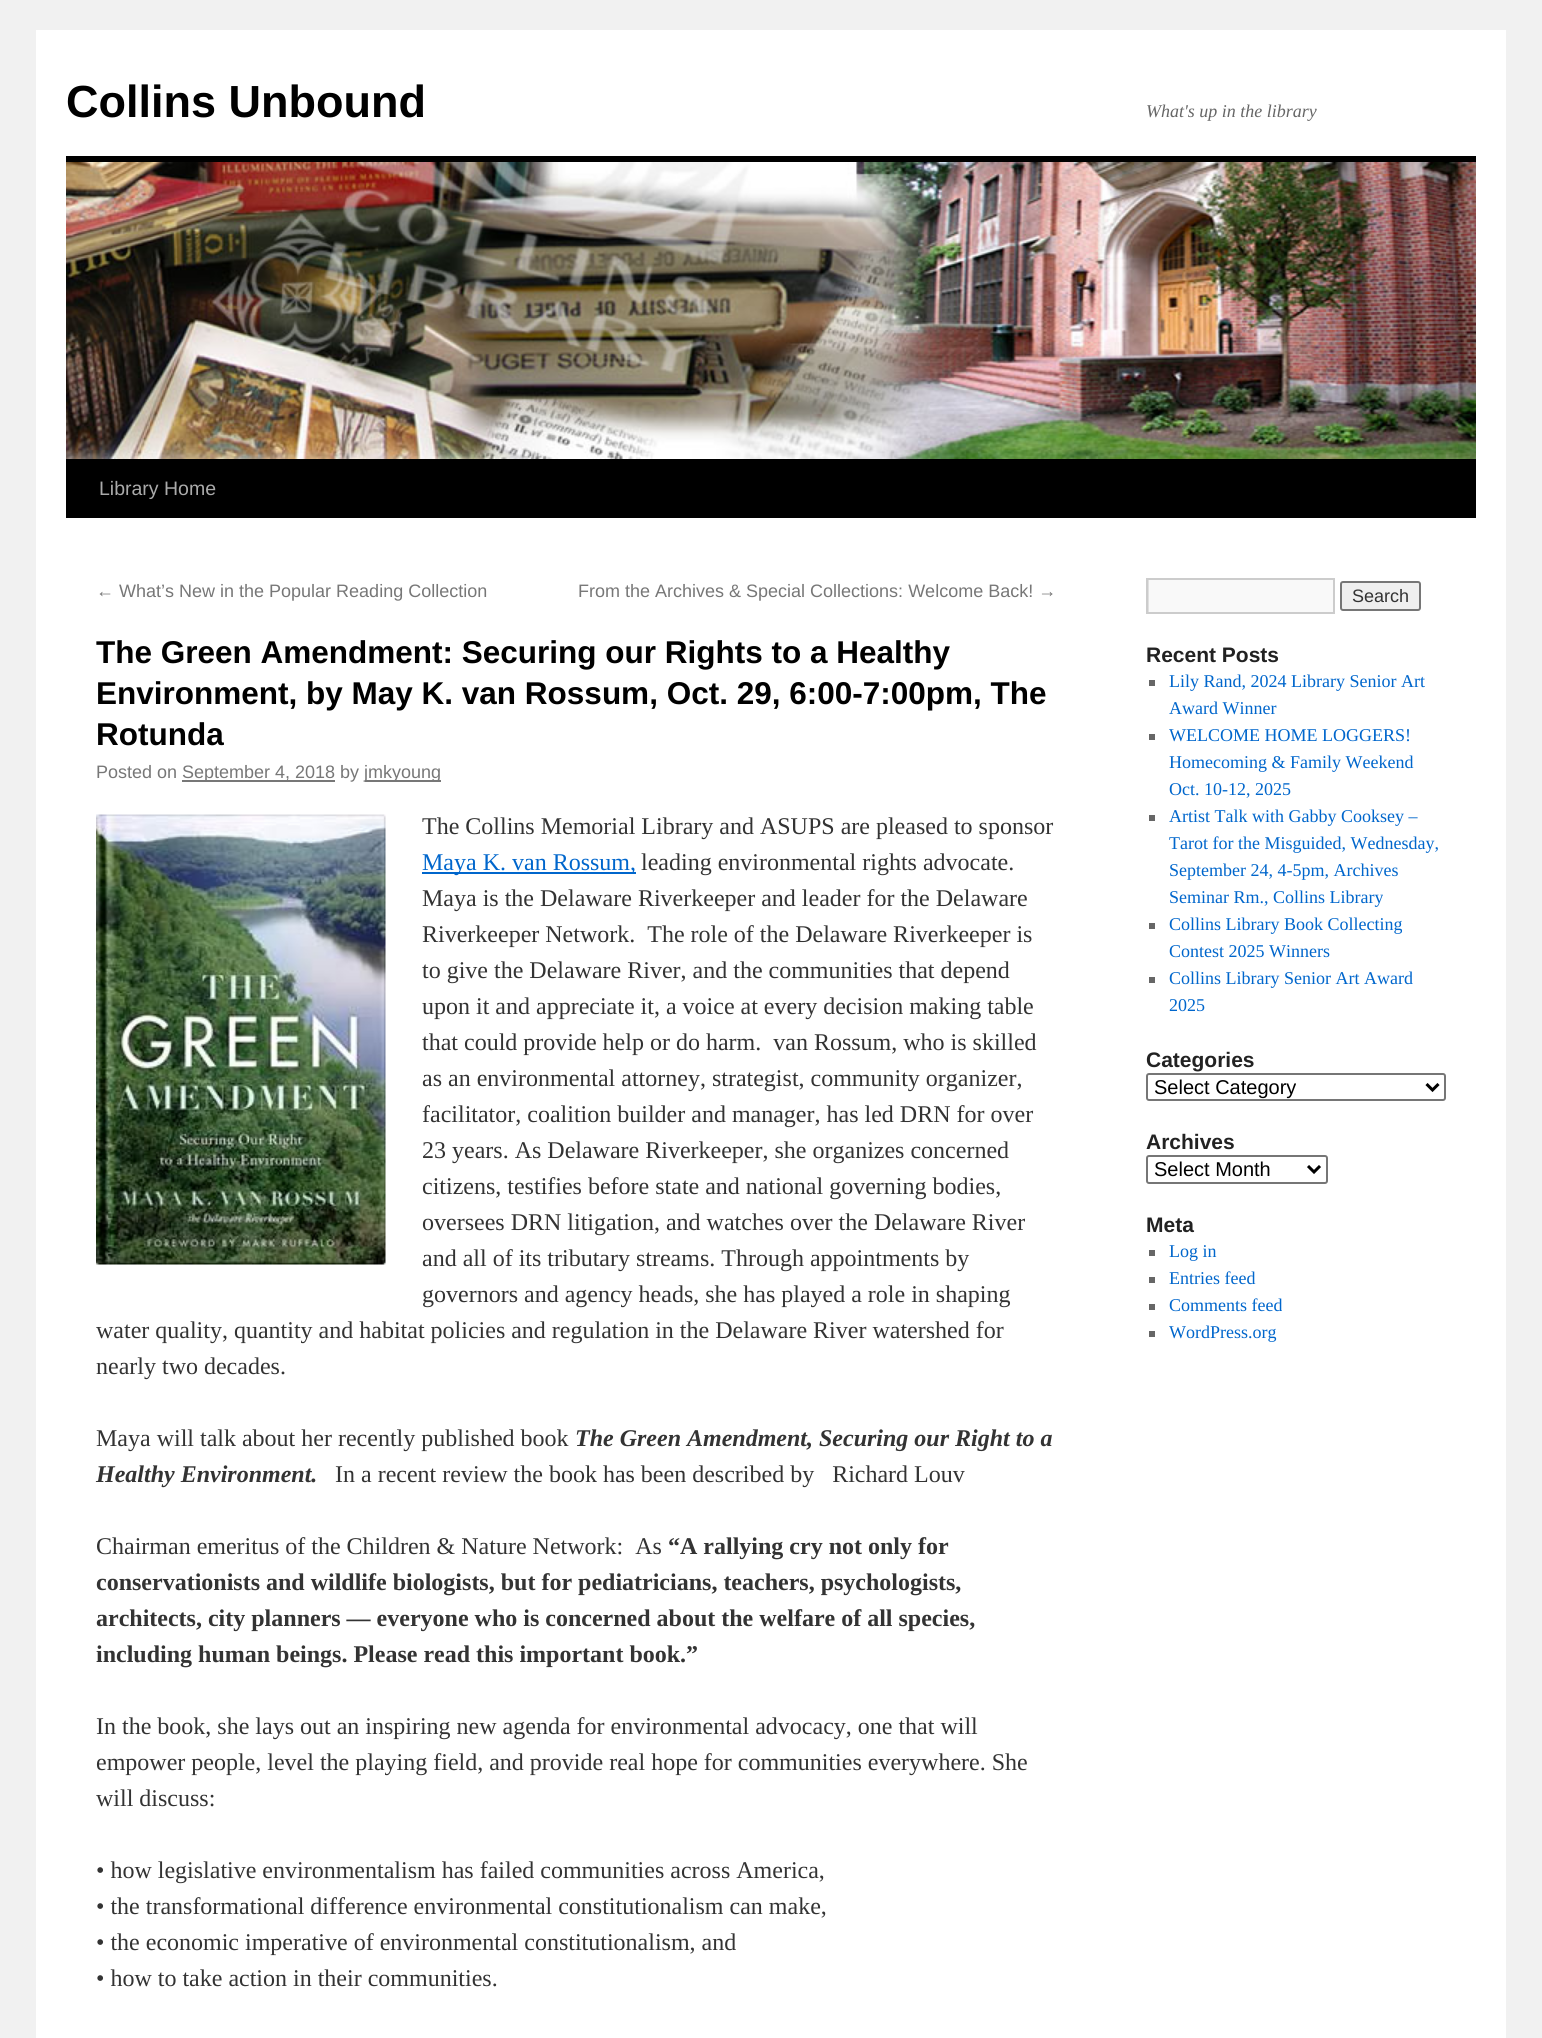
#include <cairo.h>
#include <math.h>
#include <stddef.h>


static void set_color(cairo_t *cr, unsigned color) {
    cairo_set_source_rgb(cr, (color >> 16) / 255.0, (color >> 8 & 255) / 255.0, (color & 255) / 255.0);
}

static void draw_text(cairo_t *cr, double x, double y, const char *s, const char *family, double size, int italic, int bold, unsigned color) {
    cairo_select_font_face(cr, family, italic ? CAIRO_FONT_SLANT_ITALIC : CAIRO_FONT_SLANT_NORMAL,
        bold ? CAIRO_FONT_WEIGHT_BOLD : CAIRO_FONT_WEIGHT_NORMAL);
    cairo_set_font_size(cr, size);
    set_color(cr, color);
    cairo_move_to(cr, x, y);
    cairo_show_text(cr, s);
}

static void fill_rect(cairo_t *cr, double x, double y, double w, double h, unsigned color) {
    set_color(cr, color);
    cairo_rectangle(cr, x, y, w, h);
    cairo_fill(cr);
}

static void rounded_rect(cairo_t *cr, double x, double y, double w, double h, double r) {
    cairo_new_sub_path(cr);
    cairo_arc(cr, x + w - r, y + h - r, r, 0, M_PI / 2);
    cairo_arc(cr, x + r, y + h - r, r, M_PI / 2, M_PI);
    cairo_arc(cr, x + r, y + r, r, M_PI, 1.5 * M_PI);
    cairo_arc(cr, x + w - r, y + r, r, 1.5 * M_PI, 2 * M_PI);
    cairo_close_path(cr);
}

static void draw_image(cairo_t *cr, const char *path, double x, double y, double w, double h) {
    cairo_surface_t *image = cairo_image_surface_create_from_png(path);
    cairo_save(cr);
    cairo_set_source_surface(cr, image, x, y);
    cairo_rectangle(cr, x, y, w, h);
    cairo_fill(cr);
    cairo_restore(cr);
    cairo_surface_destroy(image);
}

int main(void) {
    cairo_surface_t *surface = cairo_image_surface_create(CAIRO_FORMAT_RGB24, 1542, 2038);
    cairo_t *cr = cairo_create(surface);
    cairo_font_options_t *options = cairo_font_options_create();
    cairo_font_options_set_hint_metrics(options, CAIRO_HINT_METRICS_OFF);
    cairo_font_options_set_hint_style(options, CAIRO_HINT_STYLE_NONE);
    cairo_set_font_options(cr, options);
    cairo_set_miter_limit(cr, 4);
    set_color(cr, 0xF1F1F1);
    cairo_paint(cr);
    fill_rect(cr, 36, 30, 1470, 2008, 0xFFFFFF);
    draw_text(cr, 66, 117, "Collins Unbound", "Liberation Sans", 45, 0, 1, 0x000000);
    draw_text(cr, 1146, 117, "What's up in the library", "Liberation Serif", 18, 1, 0, 0x666666);
    fill_rect(cr, 66, 156, 1410, 6, 0x000000);
    fill_rect(cr, 66, 459, 1410, 59, 0x000000);
    draw_image(cr, "assets/img1.png", 66, 162, 1410, 297);
    draw_text(cr, 99, 495, "Library Home", "Liberation Sans", 19.5, 0, 0, 0xAAAAAA);
    draw_text(cr, 96, 597, "← What’s New in the Popular Reading Collection", "Liberation Sans", 18, 0, 0, 0x777777);
    draw_text(cr, 578, 597, "From the Archives & Special Collections: Welcome Back! →", "Liberation Sans", 18, 0, 0, 0x777777);
    draw_text(cr, 96, 663, "The Green Amendment: Securing our Rights to a Healthy", "Liberation Sans", 31.5, 0, 1, 0x000000);
    draw_text(cr, 96, 704, "Environment, by May K. van Rossum, Oct. 29, 6:00-7:00pm, The", "Liberation Sans", 31.5, 0, 1, 0x000000);
    draw_text(cr, 96, 745, "Rotunda", "Liberation Sans", 31.5, 0, 1, 0x000000);
    draw_text(cr, 96, 778, "Posted on", "Liberation Sans", 18, 0, 0, 0x777777);
    fill_rect(cr, 182, 780, 153, 2, 0x777777);
    draw_text(cr, 182, 778, "September 4, 2018 by", "Liberation Sans", 18, 0, 0, 0x777777);
    fill_rect(cr, 365, 780, 76, 2, 0x777777);
    draw_text(cr, 364, 778, "jmkyoung", "Liberation Sans", 18, 0, 0, 0x777777);
    draw_image(cr, "assets/img2.png", 96, 814, 290, 451);
    draw_text(cr, 422, 834, "The Collins Memorial Library and ASUPS are pleased to sponsor", "Liberation Serif", 24, 0, 0, 0x333333);
    fill_rect(cr, 422, 872, 214, 2, 0x0066CC);
    draw_text(cr, 422, 870, "Maya K. van Rossum,", "Liberation Serif", 24, 0, 0, 0x0066CC);
    draw_text(cr, 641, 870, "leading environmental rights advocate.", "Liberation Serif", 24, 0, 0, 0x333333);
    draw_text(cr, 422, 906, "Maya is the Delaware Riverkeeper and leader for the Delaware", "Liberation Serif", 24, 0, 0, 0x333333);
    draw_text(cr, 422, 942, "Riverkeeper Network.  The role of the Delaware Riverkeeper is", "Liberation Serif", 24, 0, 0, 0x333333);
    draw_text(cr, 422, 978, "to give the Delaware River, and the communities that depend", "Liberation Serif", 24, 0, 0, 0x333333);
    draw_text(cr, 422, 1014, "upon it and appreciate it, a voice at every decision making table", "Liberation Serif", 24, 0, 0, 0x333333);
    draw_text(cr, 422, 1050, "that could provide help or do harm.  van Rossum, who is skilled", "Liberation Serif", 24, 0, 0, 0x333333);
    draw_text(cr, 422, 1086, "as an environmental attorney, strategist, community organizer,", "Liberation Serif", 24, 0, 0, 0x333333);
    draw_text(cr, 422, 1122, "facilitator, coalition builder and manager, has led DRN for over", "Liberation Serif", 24, 0, 0, 0x333333);
    draw_text(cr, 422, 1158, "23 years. As Delaware Riverkeeper, she organizes concerned", "Liberation Serif", 24, 0, 0, 0x333333);
    draw_text(cr, 422, 1194, "citizens, testifies before state and national governing bodies,", "Liberation Serif", 24, 0, 0, 0x333333);
    draw_text(cr, 422, 1230, "oversees DRN litigation, and watches over the Delaware River", "Liberation Serif", 24, 0, 0, 0x333333);
    draw_text(cr, 422, 1266, "and all of its tributary streams. Through appointments by", "Liberation Serif", 24, 0, 0, 0x333333);
    draw_text(cr, 422, 1302, "governors and agency heads, she has played a role in shaping", "Liberation Serif", 24, 0, 0, 0x333333);
    draw_text(cr, 96, 1338, "water quality, quantity and habitat policies and regulation in the Delaware River watershed for", "Liberation Serif", 24, 0, 0, 0x333333);
    draw_text(cr, 96, 1374, "nearly two decades.", "Liberation Serif", 24, 0, 0, 0x333333);
    draw_text(cr, 96, 1446, "Maya will talk about her recently published book", "Liberation Serif", 24, 0, 0, 0x333333);
    draw_text(cr, 575, 1446, "The Green Amendment, Securing our Right to a", "Liberation Serif", 24, 1, 1, 0x333333);
    draw_text(cr, 96, 1482, "Healthy Environment.", "Liberation Serif", 24, 1, 1, 0x333333);
    draw_text(cr, 335, 1482, "In a recent review the book has been described by   Richard Louv", "Liberation Serif", 24, 0, 0, 0x333333);
    draw_text(cr, 96, 1554, "Chairman emeritus of the Children & Nature Network:  As", "Liberation Serif", 24, 0, 0, 0x333333);
    draw_text(cr, 668, 1554, "“A rallying cry not only for", "Liberation Serif", 24, 0, 1, 0x333333);
    draw_text(cr, 96, 1590, "conservationists and wildlife biologists, but for pediatricians, teachers, psychologists,", "Liberation Serif", 24, 0, 1, 0x333333);
    draw_text(cr, 96, 1626, "architects, city planners — everyone who is concerned about the welfare of all species,", "Liberation Serif", 24, 0, 1, 0x333333);
    draw_text(cr, 96, 1662, "including human beings. Please read this important book.”", "Liberation Serif", 24, 0, 1, 0x333333);
    draw_text(cr, 96, 1734, "In the book, she lays out an inspiring new agenda for environmental advocacy, one that will", "Liberation Serif", 24, 0, 0, 0x333333);
    draw_text(cr, 96, 1770, "empower people, level the playing field, and provide real hope for communities everywhere. She", "Liberation Serif", 24, 0, 0, 0x333333);
    draw_text(cr, 96, 1806, "will discuss:", "Liberation Serif", 24, 0, 0, 0x333333);
    draw_text(cr, 96, 1878, "• how legislative environmentalism has failed communities across America,", "Liberation Serif", 24, 0, 0, 0x333333);
    draw_text(cr, 96, 1914, "• the transformational difference environmental constitutionalism can make,", "Liberation Serif", 24, 0, 0, 0x333333);
    draw_text(cr, 96, 1950, "• the economic imperative of environmental constitutionalism, and", "Liberation Serif", 24, 0, 0, 0x333333);
    draw_text(cr, 96, 1986, "• how to take action in their communities.", "Liberation Serif", 24, 0, 0, 0x333333);
    fill_rect(cr, 1149, 580, 184, 32, 0xF9F9F9);
    cairo_save(cr);
    cairo_rectangle(cr, 1148, 579, 186, 33);
    cairo_clip(cr);
    set_color(cr, 0xE0E0E0);
    cairo_set_fill_rule(cr, CAIRO_FILL_RULE_EVEN_ODD);
    cairo_new_path(cr);
    cairo_move_to(cr, 999, 430);
    cairo_line_to(cr, 1482, 430);
    cairo_line_to(cr, 1482, 760);
    cairo_line_to(cr, 999, 760);
    cairo_close_path(cr);
    cairo_move_to(cr, 1149, 580);
    cairo_line_to(cr, 1335, 580);
    cairo_line_to(cr, 1335, 614);
    cairo_line_to(cr, 1149, 614);
    cairo_close_path(cr);
    cairo_fill(cr);
    cairo_restore(cr);
    cairo_rectangle(cr, 1147, 579, 187, 34);
    set_color(cr, 0xCCCCCC);
    cairo_stroke(cr);
    set_color(cr, 0xEFEFEF);
    rounded_rect(cr, 1341, 582, 79, 28, 2);
    cairo_fill_preserve(cr);
    set_color(cr, 0x767676);
    cairo_stroke(cr);
    draw_text(cr, 1352, 602, "Search", "Liberation Sans", 18, 0, 0, 0x333333);
    draw_text(cr, 1146, 662, "Recent Posts", "Liberation Sans", 21, 0, 1, 0x222222);
    fill_rect(cr, 1149, 680, 6, 6, 0x666666);
    draw_text(cr, 1169, 687, "Lily Rand, 2024 Library Senior Art", "Liberation Serif", 18, 0, 0, 0x0066CC);
    draw_text(cr, 1169, 714, "Award Winner", "Liberation Serif", 18, 0, 0, 0x0066CC);
    fill_rect(cr, 1149, 734, 6, 6, 0x666666);
    draw_text(cr, 1169, 741, "WELCOME HOME LOGGERS!", "Liberation Serif", 18, 0, 0, 0x0066CC);
    draw_text(cr, 1169, 768, "Homecoming & Family Weekend", "Liberation Serif", 18, 0, 0, 0x0066CC);
    draw_text(cr, 1169, 795, "Oct. 10-12, 2025", "Liberation Serif", 18, 0, 0, 0x0066CC);
    fill_rect(cr, 1149, 815, 6, 6, 0x666666);
    draw_text(cr, 1169, 822, "Artist Talk with Gabby Cooksey –", "Liberation Serif", 18, 0, 0, 0x0066CC);
    draw_text(cr, 1169, 849, "Tarot for the Misguided, Wednesday,", "Liberation Serif", 18, 0, 0, 0x0066CC);
    draw_text(cr, 1169, 876, "September 24, 4-5pm, Archives", "Liberation Serif", 18, 0, 0, 0x0066CC);
    draw_text(cr, 1169, 903, "Seminar Rm., Collins Library", "Liberation Serif", 18, 0, 0, 0x0066CC);
    fill_rect(cr, 1149, 923, 6, 6, 0x666666);
    draw_text(cr, 1169, 930, "Collins Library Book Collecting", "Liberation Serif", 18, 0, 0, 0x0066CC);
    draw_text(cr, 1169, 957, "Contest 2025 Winners", "Liberation Serif", 18, 0, 0, 0x0066CC);
    fill_rect(cr, 1149, 977, 6, 6, 0x666666);
    draw_text(cr, 1169, 984, "Collins Library Senior Art Award", "Liberation Serif", 18, 0, 0, 0x0066CC);
    draw_text(cr, 1169, 1011, "2025", "Liberation Serif", 18, 0, 0, 0x0066CC);
    draw_text(cr, 1146, 1067, "Categories", "Liberation Sans", 21, 0, 1, 0x222222);
    rounded_rect(cr, 1147, 1074, 298, 26, 2);
    set_color(cr, 0x767676);
    cairo_stroke(cr);
    cairo_new_path(cr);
    cairo_move_to(cr, 1426.5, 1084);
    cairo_line_to(cr, 1432.5, 1090);
    cairo_line_to(cr, 1438.5, 1084);
    set_color(cr, 0x000000);
    cairo_set_line_width(cr, 3);
    cairo_stroke(cr);
    draw_text(cr, 1154, 1094, "Select Category", "Liberation Sans", 20, 0, 0, 0x000000);
    draw_text(cr, 1146, 1149, "Archives", "Liberation Sans", 21, 0, 1, 0x222222);
    rounded_rect(cr, 1147, 1156, 180, 27, 2);
    set_color(cr, 0x767676);
    cairo_set_line_width(cr, 2);
    cairo_stroke(cr);
    cairo_new_path(cr);
    cairo_move_to(cr, 1308, 1166);
    cairo_line_to(cr, 1314, 1172);
    cairo_line_to(cr, 1320, 1166);
    set_color(cr, 0x000000);
    cairo_set_line_width(cr, 3);
    cairo_stroke(cr);
    draw_text(cr, 1154, 1176, "Select Month", "Liberation Sans", 20, 0, 0, 0x000000);
    draw_text(cr, 1146, 1232, "Meta", "Liberation Sans", 21, 0, 1, 0x222222);
    fill_rect(cr, 1149, 1250, 6, 6, 0x666666);
    draw_text(cr, 1169, 1257, "Log in", "Liberation Serif", 18, 0, 0, 0x0066CC);
    fill_rect(cr, 1149, 1277, 6, 6, 0x666666);
    draw_text(cr, 1169, 1284, "Entries feed", "Liberation Serif", 18, 0, 0, 0x0066CC);
    fill_rect(cr, 1149, 1304, 6, 6, 0x666666);
    draw_text(cr, 1169, 1311, "Comments feed", "Liberation Serif", 18, 0, 0, 0x0066CC);
    fill_rect(cr, 1149, 1331, 6, 6, 0x666666);
    draw_text(cr, 1169, 1338, "WordPress.org", "Liberation Serif", 18, 0, 0, 0x0066CC);
    cairo_surface_write_to_png(surface, "output.png");
    cairo_font_options_destroy(options);
    cairo_destroy(cr);
    cairo_surface_destroy(surface);
    return 0;
}
